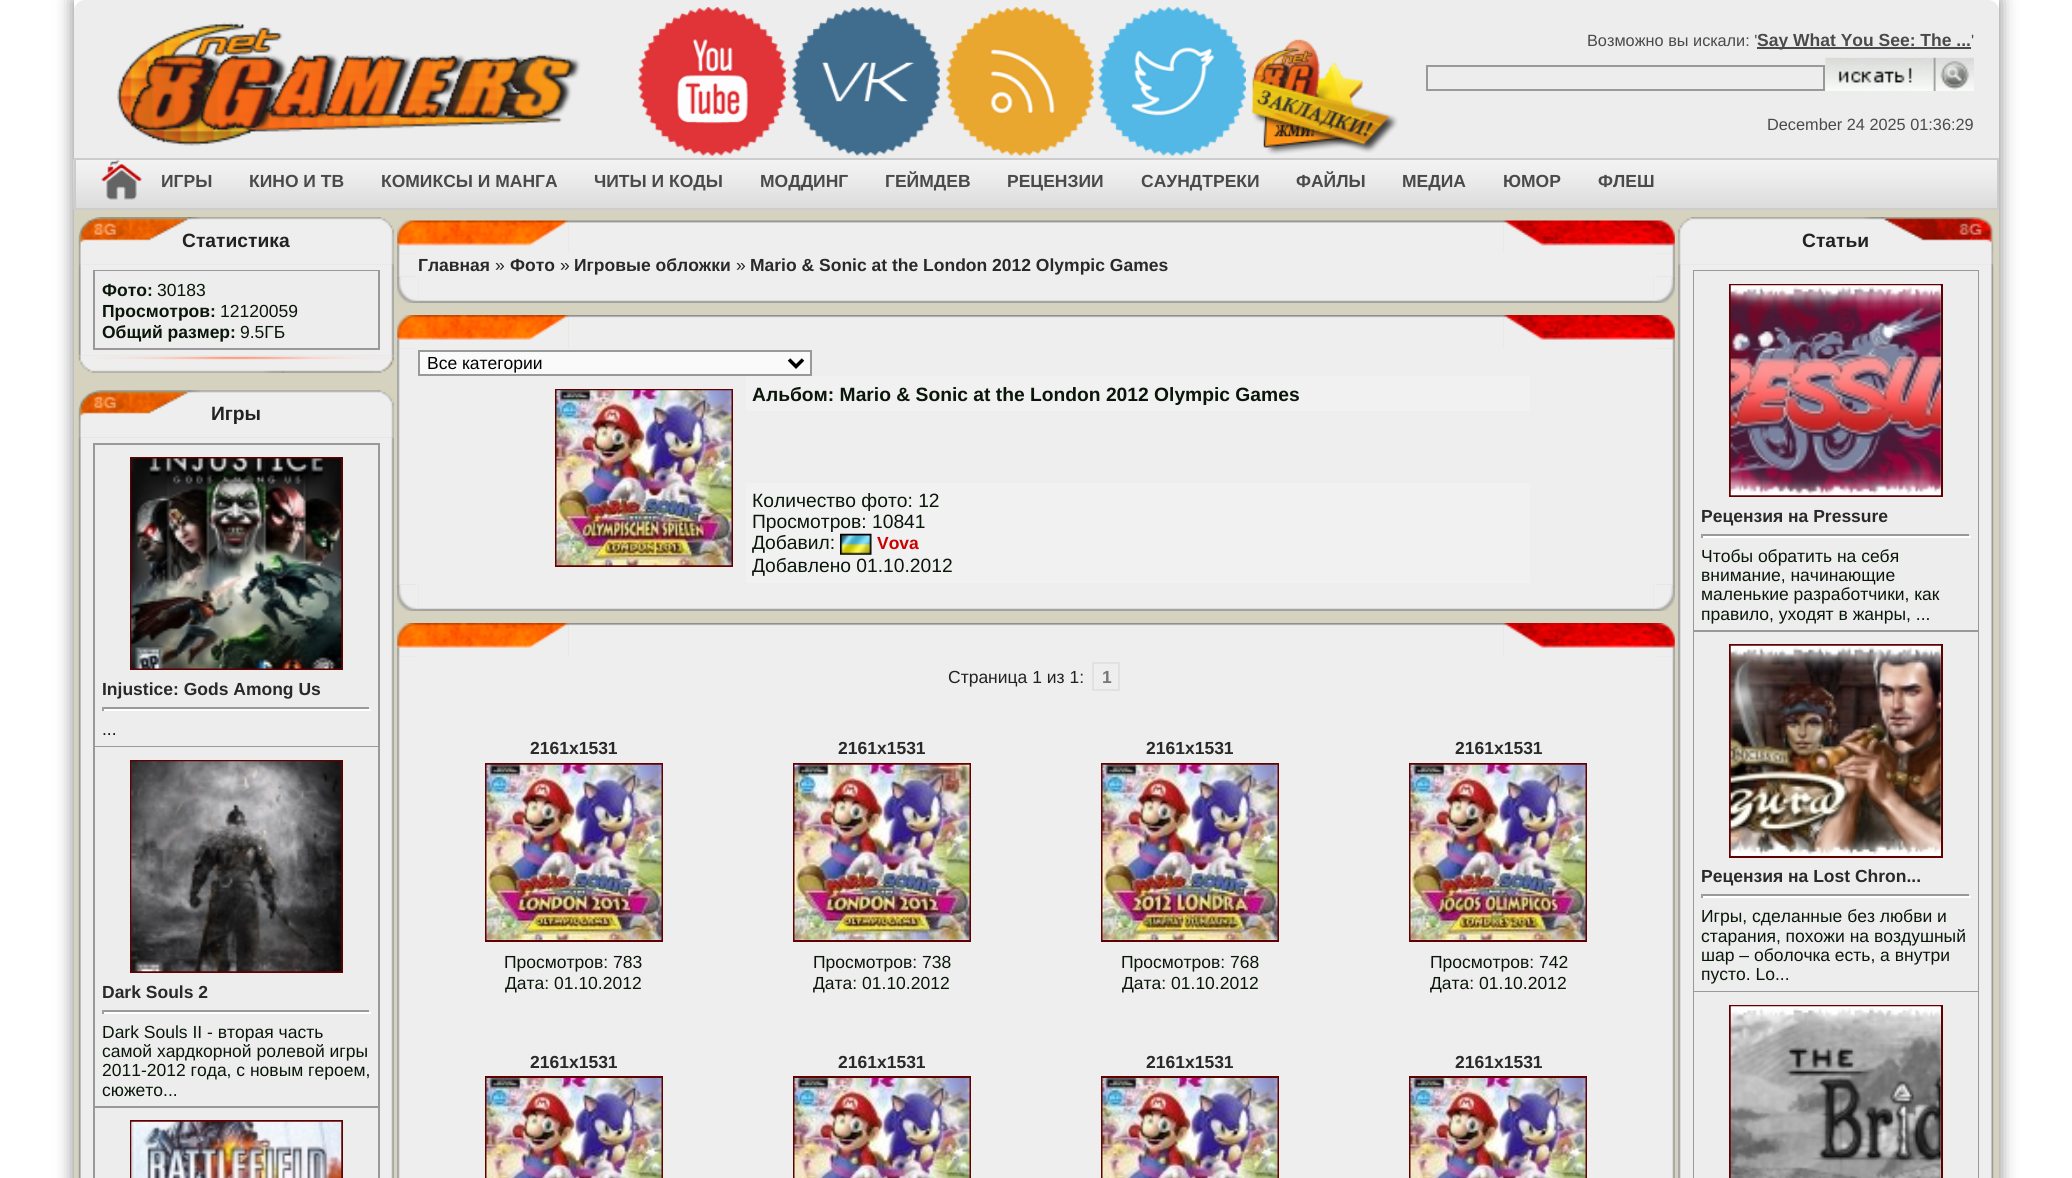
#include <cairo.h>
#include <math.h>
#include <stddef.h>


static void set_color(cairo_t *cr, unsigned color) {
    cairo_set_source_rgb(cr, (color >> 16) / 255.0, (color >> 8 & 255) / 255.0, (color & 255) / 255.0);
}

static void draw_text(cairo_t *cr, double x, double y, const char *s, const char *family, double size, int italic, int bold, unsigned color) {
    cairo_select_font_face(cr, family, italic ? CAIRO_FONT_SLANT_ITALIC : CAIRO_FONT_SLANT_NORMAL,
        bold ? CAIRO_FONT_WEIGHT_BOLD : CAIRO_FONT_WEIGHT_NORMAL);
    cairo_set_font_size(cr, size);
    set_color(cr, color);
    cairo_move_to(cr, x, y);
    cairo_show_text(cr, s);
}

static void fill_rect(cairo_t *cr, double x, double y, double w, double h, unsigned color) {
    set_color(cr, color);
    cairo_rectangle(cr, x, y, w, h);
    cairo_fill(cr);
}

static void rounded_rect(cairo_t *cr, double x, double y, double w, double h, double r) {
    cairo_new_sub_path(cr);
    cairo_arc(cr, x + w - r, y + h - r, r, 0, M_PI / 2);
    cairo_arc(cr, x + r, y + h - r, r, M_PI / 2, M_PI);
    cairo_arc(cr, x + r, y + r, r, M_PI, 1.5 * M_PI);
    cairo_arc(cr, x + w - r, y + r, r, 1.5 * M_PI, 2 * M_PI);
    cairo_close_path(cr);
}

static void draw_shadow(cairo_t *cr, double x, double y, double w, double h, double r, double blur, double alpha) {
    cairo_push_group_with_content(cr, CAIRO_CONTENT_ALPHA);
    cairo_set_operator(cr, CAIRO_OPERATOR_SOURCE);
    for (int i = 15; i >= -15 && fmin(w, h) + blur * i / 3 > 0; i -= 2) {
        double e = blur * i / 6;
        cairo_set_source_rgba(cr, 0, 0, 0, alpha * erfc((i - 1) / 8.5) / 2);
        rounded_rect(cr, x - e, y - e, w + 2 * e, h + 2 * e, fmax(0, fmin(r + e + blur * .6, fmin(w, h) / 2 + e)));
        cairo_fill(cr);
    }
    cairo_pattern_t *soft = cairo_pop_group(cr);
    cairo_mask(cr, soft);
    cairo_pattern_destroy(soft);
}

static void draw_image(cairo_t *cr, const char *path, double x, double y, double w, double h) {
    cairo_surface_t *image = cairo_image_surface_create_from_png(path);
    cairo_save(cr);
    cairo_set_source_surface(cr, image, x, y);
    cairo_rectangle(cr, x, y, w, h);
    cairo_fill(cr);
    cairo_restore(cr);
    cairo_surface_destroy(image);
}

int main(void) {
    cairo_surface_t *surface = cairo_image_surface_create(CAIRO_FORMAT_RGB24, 2072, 1178);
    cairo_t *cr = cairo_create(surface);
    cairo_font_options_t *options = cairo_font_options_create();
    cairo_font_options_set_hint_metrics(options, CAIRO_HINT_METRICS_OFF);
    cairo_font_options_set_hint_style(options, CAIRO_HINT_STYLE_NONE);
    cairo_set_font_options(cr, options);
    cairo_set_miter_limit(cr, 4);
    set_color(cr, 0xFFFFFF);
    cairo_paint(cr);
    cairo_save(cr);
    cairo_set_fill_rule(cr, CAIRO_FILL_RULE_EVEN_ODD);
    cairo_new_path(cr);
    cairo_move_to(cr, 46, 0);
    cairo_line_to(cr, 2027, 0);
    cairo_line_to(cr, 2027, 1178);
    cairo_line_to(cr, 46, 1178);
    cairo_close_path(cr);
    cairo_move_to(cr, 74, 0);
    cairo_line_to(cr, 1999, 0);
    cairo_line_to(cr, 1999, 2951);
    cairo_line_to(cr, 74, 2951);
    cairo_close_path(cr);
    cairo_clip(cr);
    set_color(cr, 0x000000);
    draw_shadow(cr, 74, 0, 1925, 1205, 0, 9, 0.5);
    cairo_restore(cr);
    set_color(cr, 0xEDEDED);
    cairo_new_path(cr);
    cairo_move_to(cr, 85, 0);
    cairo_line_to(cr, 1988, 0);
    cairo_curve_to(cr, 1994, 0, 1999, 5, 1999, 11);
    cairo_line_to(cr, 1999, 158);
    cairo_line_to(cr, 74, 158);
    cairo_line_to(cr, 74, 11);
    cairo_curve_to(cr, 74, 5, 79, 0, 85, 0);
    cairo_close_path(cr);
    cairo_fill(cr);
    draw_image(cr, "assets/img1.png", 117, 22, 464, 124);
    draw_image(cr, "assets/img2.png", 638, 7, 148, 149);
    draw_image(cr, "assets/img3.png", 792, 7, 148, 149);
    draw_image(cr, "assets/img4.png", 946, 7, 148, 149);
    draw_image(cr, "assets/img5.png", 1098, 7, 148, 149);
    draw_image(cr, "assets/img6.png", 1251, 38, 147, 117);
    draw_text(cr, 1587, 46, "Возможно вы искали: '", "Liberation Sans", 16.3, 0, 0, 0x4A4A4A);
    fill_rect(cr, 1757, 47, 214, 2, 0x4A4A4A);
    draw_text(cr, 1757, 46, "Say What You See: The ...", "Liberation Sans", 17.5, 0, 1, 0x4A4A4A);
    draw_text(cr, 1971, 46, "'", "Liberation Sans", 16.3, 0, 0, 0x4A4A4A);
    cairo_rectangle(cr, 1427, 66, 397, 24);
    set_color(cr, 0x999999);
    cairo_stroke(cr);
    draw_image(cr, "assets/img7.png", 1825, 57, 149, 34);
    draw_text(cr, 1767, 130, "December 24 2025 01:36:29", "Liberation Sans", 16.3, 0, 0, 0x4A4A4A);
    draw_image(cr, "assets/img8.png", 73, 159, 1924, 51);
    cairo_rectangle(cr, 75, 159, 1923, 50);
    set_color(cr, 0xCCCCCC);
    cairo_stroke(cr);
    draw_image(cr, "assets/img9.png", 101, 159, 41, 41);
    draw_text(cr, 161, 187, "ИГРЫ", "Liberation Sans", 17.5, 0, 1, 0x4A4A4A);
    draw_text(cr, 249, 187, "КИНО И ТВ", "Liberation Sans", 17.5, 0, 1, 0x4A4A4A);
    draw_text(cr, 381, 187, "КОМИКСЫ И МАНГА", "Liberation Sans", 17.5, 0, 1, 0x4A4A4A);
    draw_text(cr, 594, 187, "ЧИТЫ И КОДЫ", "Liberation Sans", 17.5, 0, 1, 0x4A4A4A);
    draw_text(cr, 760, 187, "МОДДИНГ", "Liberation Sans", 17.5, 0, 1, 0x4A4A4A);
    draw_text(cr, 885, 187, "ГЕЙМДЕВ", "Liberation Sans", 17.5, 0, 1, 0x4A4A4A);
    draw_text(cr, 1007, 187, "РЕЦЕНЗИИ", "Liberation Sans", 17.5, 0, 1, 0x4A4A4A);
    draw_text(cr, 1141, 187, "САУНДТРЕКИ", "Liberation Sans", 17.5, 0, 1, 0x4A4A4A);
    draw_text(cr, 1296, 187, "ФАЙЛЫ", "Liberation Sans", 17.5, 0, 1, 0x4A4A4A);
    draw_text(cr, 1402, 187, "МЕДИА", "Liberation Sans", 17.5, 0, 1, 0x4A4A4A);
    draw_text(cr, 1503, 187, "ЮМОР", "Liberation Sans", 17.5, 0, 1, 0x4A4A4A);
    draw_text(cr, 1598, 187, "ФЛЕШ", "Liberation Sans", 17.5, 0, 1, 0x4A4A4A);
    fill_rect(cr, 74, 210, 1925, 968, 0xD5D2BF);
    draw_image(cr, "assets/img10.png", 78, 217, 316, 48);
    draw_text(cr, 182, 247, "Статистика", "Liberation Sans", 19.25, 0, 1, 0x222222);
    draw_image(cr, "assets/img11.png", 78, 264, 316, 92);
    fill_rect(cr, 93, 270, 287, 80, 0x999999);
    fill_rect(cr, 95, 271, 283, 77, 0xEDEDED);
    draw_text(cr, 102, 296, "Фото:", "Liberation Sans", 17.5, 0, 1, 0x091609);
    draw_text(cr, 157, 296, "30183", "Liberation Sans", 17.5, 0, 0, 0x091609);
    draw_text(cr, 102, 317, "Просмотров:", "Liberation Sans", 17.5, 0, 1, 0x091609);
    draw_text(cr, 220, 317, "12120059", "Liberation Sans", 17.5, 0, 0, 0x091609);
    draw_text(cr, 102, 338, "Общий размер:", "Liberation Sans", 17.5, 0, 1, 0x091609);
    draw_text(cr, 240, 338, "9.5ГБ", "Liberation Sans", 17.5, 0, 0, 0x091609);
    draw_image(cr, "assets/img12.png", 78, 355, 316, 18);
    draw_image(cr, "assets/img13.png", 78, 390, 316, 48);
    draw_text(cr, 211, 420, "Игры", "Liberation Sans", 19.25, 0, 1, 0x222222);
    draw_image(cr, "assets/img14.png", 78, 437, 316, 741);
    fill_rect(cr, 93, 443, 287, 735, 0x999999);
    fill_rect(cr, 95, 445, 283, 301, 0xEDEDED);
    cairo_rectangle(cr, 131, 458, 211, 211);
    set_color(cr, 0x610001);
    cairo_stroke(cr);
    draw_image(cr, "assets/img15.png", 131, 458, 211, 211);
    draw_text(cr, 102, 695, "Injustice: Gods Among Us", "Liberation Sans", 17.5, 0, 1, 0x292929);
    fill_rect(cr, 102, 707, 269, 2, 0x999999);
    fill_rect(cr, 369, 707, 2, 4, 0xEEEEEE);
    fill_rect(cr, 102, 709, 269, 2, 0xFFFFFF);
    fill_rect(cr, 102, 707, 2, 4, 0x9F9F9F);
    draw_text(cr, 102, 735, "...", "Liberation Sans", 17.5, 0, 0, 0x091609);
    fill_rect(cr, 95, 747, 283, 359, 0xEDEDED);
    cairo_rectangle(cr, 131, 761, 211, 211);
    set_color(cr, 0x610001);
    cairo_stroke(cr);
    draw_image(cr, "assets/img16.png", 131, 761, 211, 211);
    draw_text(cr, 102, 998, "Dark Souls 2", "Liberation Sans", 17.5, 0, 1, 0x292929);
    fill_rect(cr, 102, 1010, 269, 2, 0x999999);
    fill_rect(cr, 369, 1010, 2, 4, 0xEEEEEE);
    fill_rect(cr, 102, 1012, 269, 2, 0xFFFFFF);
    fill_rect(cr, 102, 1010, 2, 4, 0x9F9F9F);
    draw_text(cr, 102, 1038, "Dark Souls II - вторая часть", "Liberation Sans", 17.5, 0, 0, 0x091609);
    draw_text(cr, 102, 1057, "самой хардкорной ролевой игры", "Liberation Sans", 17.5, 0, 0, 0x091609);
    draw_text(cr, 102, 1076, "2011-2012 года, с новым героем,", "Liberation Sans", 17.5, 0, 0, 0x091609);
    draw_text(cr, 102, 1096, "сюжето...", "Liberation Sans", 17.5, 0, 0, 0x091609);
    fill_rect(cr, 95, 1108, 283, 70, 0xEDEDED);
    cairo_rectangle(cr, 131, 1121, 211, 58);
    set_color(cr, 0x610001);
    cairo_stroke(cr);
    draw_image(cr, "assets/img17.png", 131, 1121, 211, 57);
    draw_image(cr, "assets/img18.png", 397, 220, 172, 34);
    draw_image(cr, "assets/img19.png", 568, 220, 936, 33);
    draw_image(cr, "assets/img20.png", 1503, 220, 172, 34);
    draw_image(cr, "assets/img21.png", 397, 253, 19, 24);
    fill_rect(cr, 416, 253, 1240, 24, 0xEEEEEE);
    draw_text(cr, 418, 271, "Главная", "Liberation Sans", 17.5, 0, 1, 0x292929);
    draw_text(cr, 495, 271, "»", "Liberation Sans", 17.5, 0, 0, 0x222222);
    draw_text(cr, 510, 271, "Фото", "Liberation Sans", 17.5, 0, 1, 0x292929);
    draw_text(cr, 560, 271, "»", "Liberation Sans", 17.5, 0, 0, 0x222222);
    draw_text(cr, 574, 271, "Игровые обложки", "Liberation Sans", 17.5, 0, 1, 0x292929);
    draw_text(cr, 736, 271, "»", "Liberation Sans", 17.5, 0, 0, 0x222222);
    draw_text(cr, 750, 271, "Mario & Sonic at the London 2012 Olympic Games", "Liberation Sans", 17.5, 0, 1, 0x292929);
    draw_image(cr, "assets/img22.png", 1656, 253, 19, 24);
    draw_image(cr, "assets/img23.png", 397, 276, 22, 27);
    draw_image(cr, "assets/img24.png", 418, 277, 1236, 26);
    draw_image(cr, "assets/img25.png", 1653, 276, 22, 27);
    draw_image(cr, "assets/img26.png", 397, 315, 172, 34);
    draw_image(cr, "assets/img27.png", 569, 315, 935, 33);
    draw_image(cr, "assets/img28.png", 1503, 315, 172, 34);
    draw_image(cr, "assets/img29.png", 397, 348, 19, 237);
    fill_rect(cr, 416, 348, 1240, 237, 0xEEEEEE);
    set_color(cr, 0xFAFAFA);
    cairo_rectangle(cr, 419, 351, 392, 24);
    cairo_fill_preserve(cr);
    set_color(cr, 0x999999);
    cairo_stroke(cr);
    cairo_new_path(cr);
    cairo_move_to(cr, 789, 359.5);
    cairo_line_to(cr, 796, 366.5);
    cairo_line_to(cr, 803, 359.5);
    set_color(cr, 0x000000);
    cairo_set_line_width(cr, 3.5);
    cairo_stroke(cr);
    draw_text(cr, 427, 369, "Все категории", "Liberation Sans", 17.5, 0, 0, 0x000000);
    cairo_rectangle(cr, 556, 390, 176, 176);
    set_color(cr, 0x610001);
    cairo_set_line_width(cr, 2);
    cairo_stroke(cr);
    draw_image(cr, "assets/img30.png", 556, 390, 176, 176);
    fill_rect(cr, 746, 376, 784, 35, 0xF1F1F1);
    draw_text(cr, 752, 401, "Альбом: Mario & Sonic at the London 2012 Olympic Games", "Liberation Sans", 19.25, 0, 1, 0x091609);
    fill_rect(cr, 746, 483, 784, 100, 0xF1F1F1);
    draw_text(cr, 752, 507, "Количество фото: 12", "Liberation Sans", 19.25, 0, 0, 0x091609);
    draw_text(cr, 752, 528, "Просмотров: 10841", "Liberation Sans", 19.25, 0, 0, 0x091609);
    draw_text(cr, 752, 549, "Добавил:", "Liberation Sans", 19.25, 0, 0, 0x091609);
    draw_image(cr, "assets/img31.png", 840, 533, 32, 22);
    draw_text(cr, 877, 549, "Vova", "Liberation Sans", 17.5, 0, 1, 0xCC0000);
    draw_text(cr, 752, 572, "Добавлено 01.10.2012", "Liberation Sans", 19.25, 0, 0, 0x091609);
    draw_image(cr, "assets/img32.png", 1656, 348, 19, 237);
    draw_image(cr, "assets/img23.png", 397, 584, 22, 27);
    draw_image(cr, "assets/img24.png", 418, 585, 1236, 26);
    draw_image(cr, "assets/img25.png", 1653, 584, 22, 27);
    draw_image(cr, "assets/img26.png", 397, 623, 172, 34);
    draw_image(cr, "assets/img27.png", 569, 623, 935, 33);
    draw_image(cr, "assets/img28.png", 1503, 623, 172, 34);
    draw_image(cr, "assets/img33.png", 397, 656, 19, 522);
    fill_rect(cr, 416, 656, 1240, 522, 0xEEEEEE);
    draw_text(cr, 948, 683, "Страница 1 из 1:", "Liberation Sans", 17.5, 0, 0, 0x222222);
    cairo_rectangle(cr, 1093, 663, 26, 27);
    set_color(cr, 0xE1E1E1);
    cairo_stroke(cr);
    draw_text(cr, 1102, 683, "1", "Liberation Sans", 17.5, 0, 1, 0x777777);
    draw_text(cr, 530, 754, "2161x1531", "Liberation Sans", 17.5, 0, 1, 0x292929);
    cairo_rectangle(cr, 486, 764, 176, 177);
    set_color(cr, 0x610001);
    cairo_stroke(cr);
    draw_image(cr, "assets/img34.png", 486, 764, 176, 176);
    draw_text(cr, 504, 968, "Просмотров: 783", "Liberation Sans", 17.5, 0, 0, 0x091609);
    draw_text(cr, 505, 989, "Дата: 01.10.2012", "Liberation Sans", 17.5, 0, 0, 0x091609);
    draw_text(cr, 838, 754, "2161x1531", "Liberation Sans", 17.5, 0, 1, 0x292929);
    cairo_rectangle(cr, 794, 764, 176, 177);
    set_color(cr, 0x610001);
    cairo_stroke(cr);
    draw_image(cr, "assets/img35.png", 794, 764, 176, 176);
    draw_text(cr, 813, 968, "Просмотров: 738", "Liberation Sans", 17.5, 0, 0, 0x091609);
    draw_text(cr, 813, 989, "Дата: 01.10.2012", "Liberation Sans", 17.5, 0, 0, 0x091609);
    draw_text(cr, 1146, 754, "2161x1531", "Liberation Sans", 17.5, 0, 1, 0x292929);
    cairo_rectangle(cr, 1102, 764, 176, 177);
    set_color(cr, 0x610001);
    cairo_stroke(cr);
    draw_image(cr, "assets/img36.png", 1102, 764, 176, 176);
    draw_text(cr, 1121, 968, "Просмотров: 768", "Liberation Sans", 17.5, 0, 0, 0x091609);
    draw_text(cr, 1122, 989, "Дата: 01.10.2012", "Liberation Sans", 17.5, 0, 0, 0x091609);
    draw_text(cr, 1455, 754, "2161x1531", "Liberation Sans", 17.5, 0, 1, 0x292929);
    cairo_rectangle(cr, 1410, 764, 176, 177);
    set_color(cr, 0x610001);
    cairo_stroke(cr);
    draw_image(cr, "assets/img37.png", 1410, 764, 176, 176);
    draw_text(cr, 1430, 968, "Просмотров: 742", "Liberation Sans", 17.5, 0, 0, 0x091609);
    draw_text(cr, 1430, 989, "Дата: 01.10.2012", "Liberation Sans", 17.5, 0, 0, 0x091609);
    draw_text(cr, 530, 1068, "2161x1531", "Liberation Sans", 17.5, 0, 1, 0x292929);
    cairo_rectangle(cr, 486, 1077, 176, 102);
    set_color(cr, 0x610001);
    cairo_stroke(cr);
    draw_image(cr, "assets/img38.png", 486, 1078, 176, 100);
    draw_text(cr, 838, 1068, "2161x1531", "Liberation Sans", 17.5, 0, 1, 0x292929);
    cairo_rectangle(cr, 794, 1077, 176, 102);
    set_color(cr, 0x610001);
    cairo_stroke(cr);
    draw_image(cr, "assets/img39.png", 794, 1078, 176, 100);
    draw_text(cr, 1146, 1068, "2161x1531", "Liberation Sans", 17.5, 0, 1, 0x292929);
    cairo_rectangle(cr, 1102, 1077, 176, 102);
    set_color(cr, 0x610001);
    cairo_stroke(cr);
    draw_image(cr, "assets/img40.png", 1102, 1078, 176, 100);
    draw_text(cr, 1455, 1068, "2161x1531", "Liberation Sans", 17.5, 0, 1, 0x292929);
    cairo_rectangle(cr, 1410, 1077, 176, 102);
    set_color(cr, 0x610001);
    cairo_stroke(cr);
    draw_image(cr, "assets/img41.png", 1410, 1078, 176, 100);
    draw_image(cr, "assets/img42.png", 1656, 656, 19, 522);
    draw_image(cr, "assets/img43.png", 1678, 217, 316, 48);
    draw_text(cr, 1802, 247, "Статьи", "Liberation Sans", 19.25, 0, 1, 0x222222);
    draw_image(cr, "assets/img44.png", 1678, 264, 316, 914);
    fill_rect(cr, 1693, 270, 286, 908, 0x999999);
    fill_rect(cr, 1694, 271, 284, 359, 0xEDEDED);
    cairo_rectangle(cr, 1730, 285, 212, 211);
    set_color(cr, 0x610001);
    cairo_stroke(cr);
    draw_image(cr, "assets/img45.png", 1730, 285, 211, 211);
    draw_text(cr, 1701, 522, "Рецензия на Pressure", "Liberation Sans", 17.5, 0, 1, 0x292929);
    fill_rect(cr, 1701, 534, 270, 2, 0x999999);
    fill_rect(cr, 1969, 534, 2, 4, 0xEEEEEE);
    fill_rect(cr, 1701, 536, 270, 2, 0xFFFFFF);
    fill_rect(cr, 1701, 534, 2, 4, 0x9F9F9F);
    draw_text(cr, 1701, 562, "Чтобы обратить на себя", "Liberation Sans", 17.5, 0, 0, 0x091609);
    draw_text(cr, 1701, 581, "внимание, начинающие", "Liberation Sans", 17.5, 0, 0, 0x091609);
    draw_text(cr, 1701, 600, "маленькие разработчики, как", "Liberation Sans", 17.5, 0, 0, 0x091609);
    draw_text(cr, 1701, 620, "правило, уходят в жанры, ...", "Liberation Sans", 17.5, 0, 0, 0x091609);
    fill_rect(cr, 1694, 632, 284, 359, 0xEDEDED);
    cairo_rectangle(cr, 1730, 645, 212, 212);
    set_color(cr, 0x610001);
    cairo_stroke(cr);
    draw_image(cr, "assets/img46.png", 1730, 645, 211, 211);
    draw_text(cr, 1701, 882, "Рецензия на Lost Chron...", "Liberation Sans", 17.5, 0, 1, 0x292929);
    fill_rect(cr, 1701, 894, 270, 2, 0x999999);
    fill_rect(cr, 1969, 894, 2, 4, 0xEEEEEE);
    fill_rect(cr, 1701, 896, 270, 2, 0xFFFFFF);
    fill_rect(cr, 1701, 894, 2, 4, 0x9F9F9F);
    draw_text(cr, 1701, 922, "Игры, сделанные без любви и", "Liberation Sans", 17.5, 0, 0, 0x091609);
    draw_text(cr, 1701, 942, "старания, похожи на воздушный", "Liberation Sans", 17.5, 0, 0, 0x091609);
    draw_text(cr, 1701, 961, "шар – оболочка есть, а внутри", "Liberation Sans", 17.5, 0, 0, 0x091609);
    draw_text(cr, 1701, 980, "пусто. Lo...", "Liberation Sans", 17.5, 0, 0, 0x091609);
    fill_rect(cr, 1694, 992, 284, 186, 0xEDEDED);
    cairo_rectangle(cr, 1730, 1006, 212, 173);
    set_color(cr, 0x610001);
    cairo_stroke(cr);
    draw_image(cr, "assets/img47.png", 1730, 1006, 211, 172);
    cairo_surface_write_to_png(surface, "output.png");
    cairo_font_options_destroy(options);
    cairo_destroy(cr);
    cairo_surface_destroy(surface);
    return 0;
}
